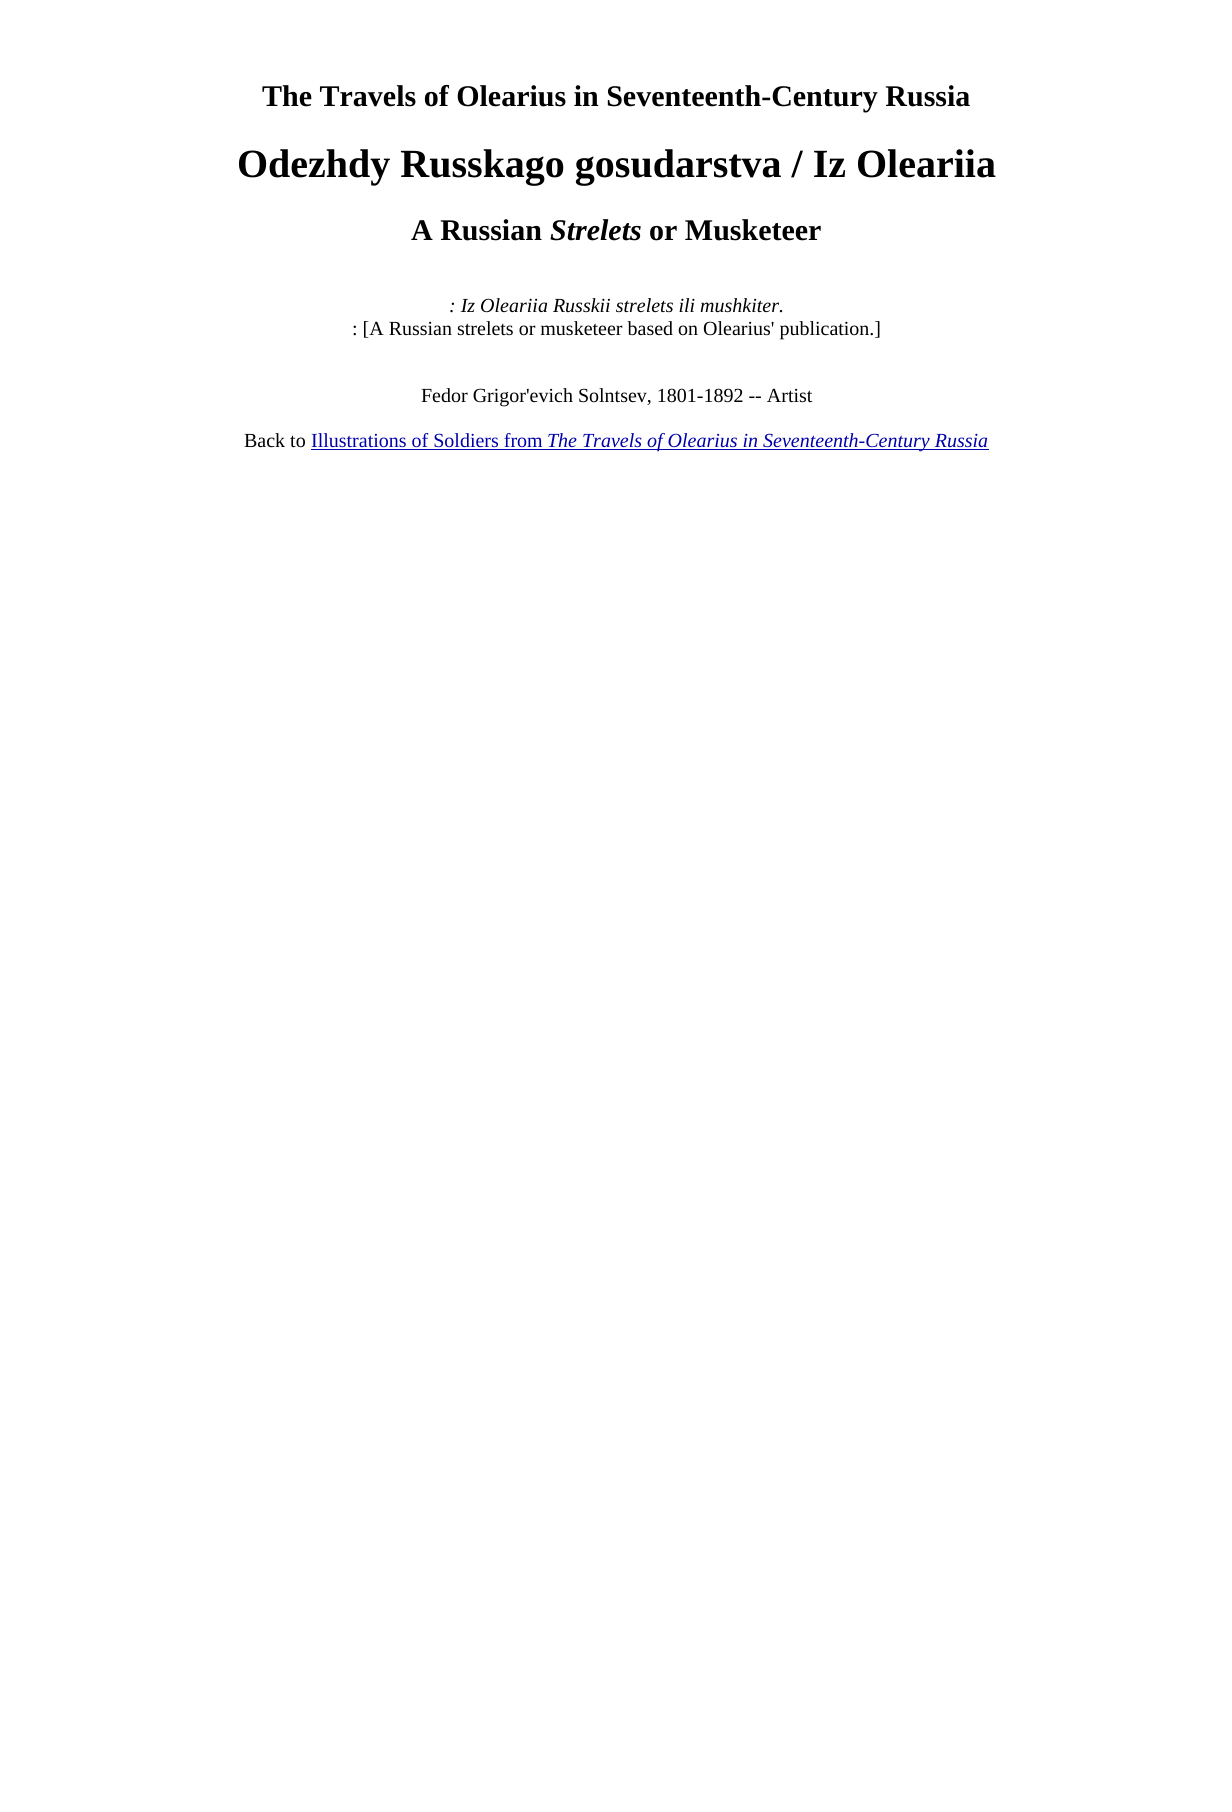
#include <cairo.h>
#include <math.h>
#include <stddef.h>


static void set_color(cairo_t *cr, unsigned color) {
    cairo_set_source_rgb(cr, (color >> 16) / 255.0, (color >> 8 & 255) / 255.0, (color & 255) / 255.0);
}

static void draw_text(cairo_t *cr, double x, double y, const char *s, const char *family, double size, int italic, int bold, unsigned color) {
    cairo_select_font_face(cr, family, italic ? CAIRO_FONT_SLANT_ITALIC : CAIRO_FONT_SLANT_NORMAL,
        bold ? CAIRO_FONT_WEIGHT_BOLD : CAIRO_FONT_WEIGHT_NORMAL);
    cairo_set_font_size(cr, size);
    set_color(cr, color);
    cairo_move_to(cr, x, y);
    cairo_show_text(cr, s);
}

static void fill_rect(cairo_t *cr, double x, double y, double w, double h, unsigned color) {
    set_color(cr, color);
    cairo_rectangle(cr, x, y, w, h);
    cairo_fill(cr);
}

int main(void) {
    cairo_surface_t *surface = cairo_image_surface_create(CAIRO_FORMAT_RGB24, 1232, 1812);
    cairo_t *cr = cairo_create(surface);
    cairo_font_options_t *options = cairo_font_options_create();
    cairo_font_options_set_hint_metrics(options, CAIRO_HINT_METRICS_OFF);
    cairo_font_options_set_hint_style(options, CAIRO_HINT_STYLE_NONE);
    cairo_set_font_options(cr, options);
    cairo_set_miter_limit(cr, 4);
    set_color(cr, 0xFFFFFF);
    cairo_paint(cr);
    draw_text(cr, 262, 106, "The Travels of Olearius in Seventeenth-Century Russia", "Liberation Serif", 30, 0, 1, 0x000000);
    draw_text(cr, 237, 177, "Odezhdy Russkago gosudarstva / Iz Oleariia", "Liberation Serif", 40, 0, 1, 0x000000);
    draw_text(cr, 411, 240, "A Russian", "Liberation Serif", 30, 0, 1, 0x000000);
    draw_text(cr, 550, 240, "Strelets", "Liberation Serif", 30, 1, 1, 0x000000);
    draw_text(cr, 649, 240, "or Musketeer", "Liberation Serif", 30, 0, 1, 0x000000);
    draw_text(cr, 449, 312, ": Iz Oleariia Russkii strelets ili mushkiter.", "Liberation Serif", 20, 1, 0, 0x000000);
    draw_text(cr, 352, 335, ": [A Russian strelets or musketeer based on Olearius' publication.]", "Liberation Serif", 20, 0, 0, 0x000000);
    draw_text(cr, 421, 402, "Fedor Grigor'evich Solntsev, 1801-1892 -- Artist", "Liberation Serif", 20, 0, 0, 0x000000);
    draw_text(cr, 244, 447, "Back to", "Liberation Serif", 20, 0, 0, 0x000000);
    draw_text(cr, 311, 447, "Illustrations of Soldiers from", "Liberation Serif", 20, 0, 0, 0x0000AA);
    fill_rect(cr, 311, 449, 678, 1, 0x0000AA);
    draw_text(cr, 547, 447, "The Travels of Olearius in Seventeenth-Century Russia", "Liberation Serif", 20, 1, 0, 0x0000AA);
    cairo_surface_write_to_png(surface, "output.png");
    cairo_font_options_destroy(options);
    cairo_destroy(cr);
    cairo_surface_destroy(surface);
    return 0;
}
